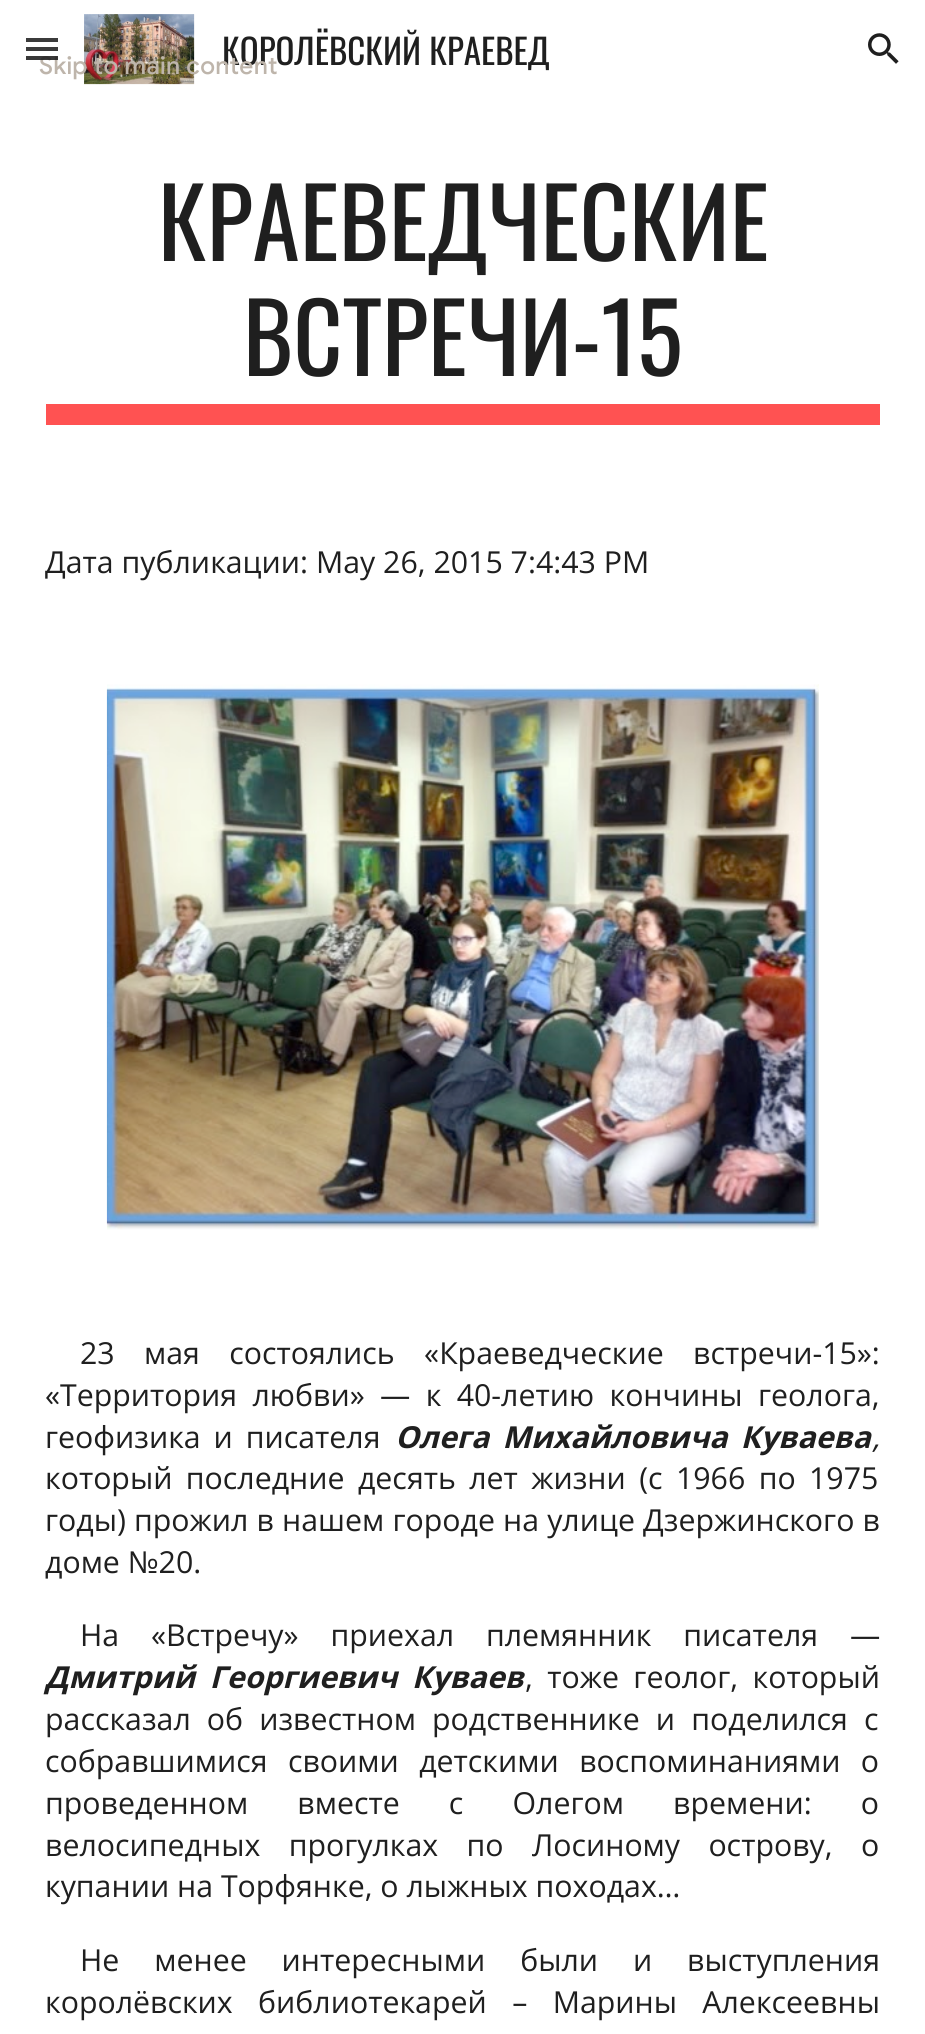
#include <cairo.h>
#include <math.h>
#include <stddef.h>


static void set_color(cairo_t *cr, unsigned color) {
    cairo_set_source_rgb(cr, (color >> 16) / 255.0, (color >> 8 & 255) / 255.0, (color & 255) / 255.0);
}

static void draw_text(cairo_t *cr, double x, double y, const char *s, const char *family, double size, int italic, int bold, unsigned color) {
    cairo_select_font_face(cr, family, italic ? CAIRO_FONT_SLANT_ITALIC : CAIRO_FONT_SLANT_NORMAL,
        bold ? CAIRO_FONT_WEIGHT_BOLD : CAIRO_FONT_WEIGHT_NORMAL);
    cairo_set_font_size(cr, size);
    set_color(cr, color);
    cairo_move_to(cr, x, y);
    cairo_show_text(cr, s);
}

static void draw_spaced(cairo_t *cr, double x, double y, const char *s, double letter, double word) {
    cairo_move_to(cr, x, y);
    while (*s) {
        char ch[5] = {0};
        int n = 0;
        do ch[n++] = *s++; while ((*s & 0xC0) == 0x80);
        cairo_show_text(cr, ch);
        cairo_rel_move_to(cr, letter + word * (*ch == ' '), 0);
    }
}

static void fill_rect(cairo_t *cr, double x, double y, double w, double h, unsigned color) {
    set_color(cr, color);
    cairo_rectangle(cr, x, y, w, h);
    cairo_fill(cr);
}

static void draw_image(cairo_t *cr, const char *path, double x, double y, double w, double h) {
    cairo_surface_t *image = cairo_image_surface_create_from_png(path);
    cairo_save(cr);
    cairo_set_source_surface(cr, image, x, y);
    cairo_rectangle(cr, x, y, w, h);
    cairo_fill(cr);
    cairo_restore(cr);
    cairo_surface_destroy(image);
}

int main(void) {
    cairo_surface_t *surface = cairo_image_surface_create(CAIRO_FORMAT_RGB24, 925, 2034);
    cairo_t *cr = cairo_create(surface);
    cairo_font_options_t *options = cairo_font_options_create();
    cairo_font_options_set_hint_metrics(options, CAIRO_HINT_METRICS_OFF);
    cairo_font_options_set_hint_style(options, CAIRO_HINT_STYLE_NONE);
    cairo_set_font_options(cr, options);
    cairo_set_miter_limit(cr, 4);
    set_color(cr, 0xFFFFFF);
    cairo_paint(cr);
    fill_rect(cr, 26, 38, 32, 4, 0x3B3B3B);
    fill_rect(cr, 26, 47, 32, 4, 0x3B3B3B);
    draw_image(cr, "assets/img1.png", 84, 14, 111, 71);
    draw_text(cr, 222, 65, "КОРОЛЁВСКИЙ КРАЕВЕД", "Oswald", 35, 0, 0, 0x1F1F1F);
    cairo_select_font_face(cr, "Google Sans Medium", CAIRO_FONT_SLANT_NORMAL, CAIRO_FONT_WEIGHT_NORMAL);
    cairo_set_font_size(cr, 24.5);
    set_color(cr, 0xBEB5AB);
    draw_spaced(cr, 39, 74, "Skip to main content", 0.25, 0);
    cairo_set_source_rgba(cr, 0.122, 0.122, 0.122, 0.88);
    cairo_rectangle(cr, 26, 56, 32, 4);
    cairo_fill(cr);
    draw_image(cr, "assets/img2.png", 868, 33, 31, 31);
    draw_text(cr, 158, 261, "КРАЕВЕДЧЕСКИЕ", "Oswald", 95.75, 0, 0, 0x1F1F1F);
    draw_text(cr, 243, 376, "ВСТРЕЧИ-15", "Oswald", 95.75, 0, 0, 0x1F1F1F);
    fill_rect(cr, 46, 404, 834, 21, 0xFF5252);
    draw_text(cr, 45, 573, "Дата публикации: May 26, 2015 7:4:43 PM", "Open Sans", 30.3, 0, 0, 0x1F1F1F);
    draw_image(cr, "assets/img3.png", 106, 684, 713, 546);
    draw_spaced(cr, 80, 1364, "23 мая состоялись «Краеведческие встречи-15»:", 0, 21.5);
    draw_spaced(cr, 45, 1406, "«Территория любви» — к 40-летию кончины геолога,", 0, 7.5);
    draw_spaced(cr, 45, 1448, "геофизика и писателя", 0, 5);
    cairo_select_font_face(cr, "Open Sans", CAIRO_FONT_SLANT_ITALIC, CAIRO_FONT_WEIGHT_BOLD);
    draw_spaced(cr, 395, 1448, "Олега Михайловича Куваева", 0, 5);
    draw_text(cr, 872, 1448, ",", "Open Sans", 30.3, 1, 0, 0x1F1F1F);
    cairo_select_font_face(cr, "Open Sans", CAIRO_FONT_SLANT_NORMAL, CAIRO_FONT_WEIGHT_NORMAL);
    draw_spaced(cr, 45, 1489, "который последние десять лет жизни (с 1966 по 1975", 0, 5.5);
    draw_spaced(cr, 45, 1531, "годы) прожил в нашем городе на улице Дзержинского в", 0, 0.25);
    draw_text(cr, 45, 1573, "доме №20.", "Open Sans", 30.3, 0, 0, 0x1F1F1F);
    draw_spaced(cr, 80, 1646, "На «Встречу» приехал племянник писателя —", 0, 24);
    cairo_select_font_face(cr, "Open Sans", CAIRO_FONT_SLANT_ITALIC, CAIRO_FONT_WEIGHT_BOLD);
    draw_spaced(cr, 45, 1688, "Дмитрий Георгиевич Куваев", 0, 6.5);
    cairo_select_font_face(cr, "Open Sans", CAIRO_FONT_SLANT_NORMAL, CAIRO_FONT_WEIGHT_NORMAL);
    draw_spaced(cr, 525, 1688, ", тоже геолог, который", 0, 6.5);
    draw_spaced(cr, 45, 1730, "рассказал об известном родственнике и поделился с", 0, 8.25);
    draw_spaced(cr, 45, 1772, "собравшимися своими детскими воспоминаниями о", 0, 12.5);
    draw_spaced(cr, 45, 1814, "проведенном вместе с Олегом времени: о", 0, 41.25);
    draw_spaced(cr, 45, 1856, "велосипедных прогулках по Лосиному острову, о", 0, 20.5);
    draw_text(cr, 45, 1897, "купании на Торфянке, о лыжных походах…", "Open Sans", 30.3, 0, 0, 0x1F1F1F);
    draw_spaced(cr, 80, 1971, "Не менее интересными были и выступления", 0, 27);
    draw_spaced(cr, 45, 2013, "королёвских библиотекарей – Марины Алексеевны", 0, 17.5);
    cairo_surface_write_to_png(surface, "output.png");
    cairo_font_options_destroy(options);
    cairo_destroy(cr);
    cairo_surface_destroy(surface);
    return 0;
}
